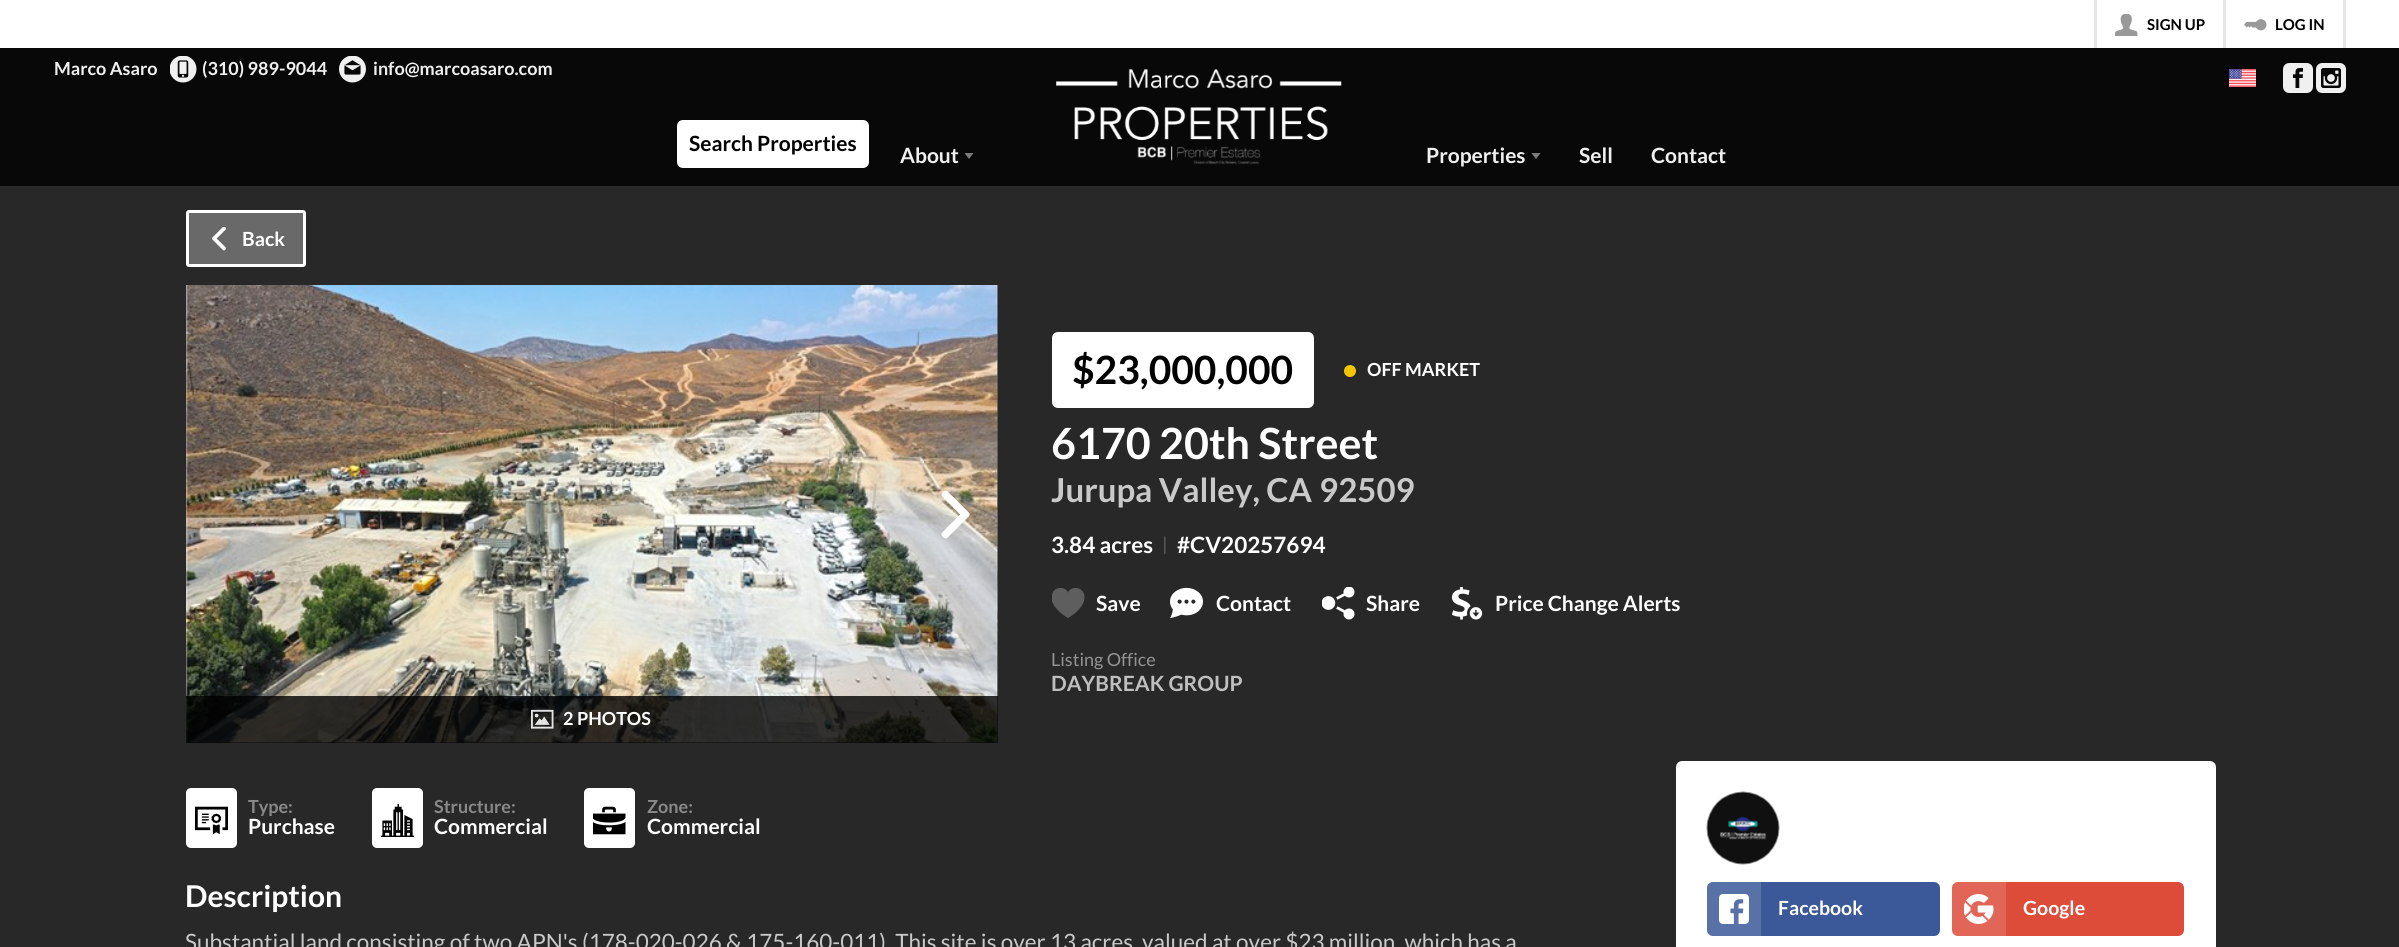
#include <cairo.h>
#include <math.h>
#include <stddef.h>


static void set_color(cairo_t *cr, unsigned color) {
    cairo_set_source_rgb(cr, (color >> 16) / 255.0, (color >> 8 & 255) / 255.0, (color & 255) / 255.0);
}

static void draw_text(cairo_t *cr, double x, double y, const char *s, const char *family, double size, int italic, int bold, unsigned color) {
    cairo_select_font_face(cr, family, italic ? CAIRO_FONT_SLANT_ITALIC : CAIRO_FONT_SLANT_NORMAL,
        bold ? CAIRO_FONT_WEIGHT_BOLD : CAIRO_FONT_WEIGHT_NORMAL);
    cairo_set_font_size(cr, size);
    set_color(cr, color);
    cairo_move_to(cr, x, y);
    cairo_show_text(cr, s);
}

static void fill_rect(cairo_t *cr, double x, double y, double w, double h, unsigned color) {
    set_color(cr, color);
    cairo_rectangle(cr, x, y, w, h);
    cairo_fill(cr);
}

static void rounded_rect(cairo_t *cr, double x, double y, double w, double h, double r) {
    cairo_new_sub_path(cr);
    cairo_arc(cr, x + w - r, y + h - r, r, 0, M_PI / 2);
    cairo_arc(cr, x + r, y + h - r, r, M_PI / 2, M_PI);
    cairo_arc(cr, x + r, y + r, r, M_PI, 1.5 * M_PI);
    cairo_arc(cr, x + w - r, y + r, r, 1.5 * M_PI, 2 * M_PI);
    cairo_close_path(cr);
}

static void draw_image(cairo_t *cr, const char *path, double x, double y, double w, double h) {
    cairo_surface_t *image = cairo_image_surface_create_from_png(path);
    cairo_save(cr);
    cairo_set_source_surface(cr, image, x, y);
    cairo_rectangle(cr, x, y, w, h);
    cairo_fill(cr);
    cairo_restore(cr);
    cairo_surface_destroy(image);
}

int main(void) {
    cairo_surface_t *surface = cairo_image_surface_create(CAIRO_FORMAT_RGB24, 2399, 947);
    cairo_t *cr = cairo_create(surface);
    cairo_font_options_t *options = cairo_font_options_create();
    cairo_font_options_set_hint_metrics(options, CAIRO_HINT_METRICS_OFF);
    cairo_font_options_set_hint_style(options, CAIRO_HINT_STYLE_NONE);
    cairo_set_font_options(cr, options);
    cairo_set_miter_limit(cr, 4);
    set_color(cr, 0x282828);
    cairo_paint(cr);
    fill_rect(cr, 0, 0, 2399, 48, 0xFFFFFF);
    fill_rect(cr, 2343, 0, 3, 48, 0xE6E6E6);
    fill_rect(cr, 2094, 0, 3, 48, 0xE6E6E6);
    draw_image(cr, "assets/img1.png", 2115, 14, 23, 22);
    draw_text(cr, 2147, 30, "SIGN UP", "Lato", 15, 0, 1, 0x000000);
    fill_rect(cr, 2223, 0, 3, 48, 0xE6E6E6);
    draw_image(cr, "assets/img2.png", 2244, 19, 23, 12);
    draw_text(cr, 2275, 30, "LOG IN", "Lato", 15, 0, 1, 0x000000);
    fill_rect(cr, 0, 48, 2399, 138, 0x080808);
    draw_text(cr, 54, 75, "Marco Asaro", "Lato", 18, 0, 1, 0xF0F0F0);
    draw_image(cr, "assets/img3.png", 170, 56, 27, 27);
    draw_text(cr, 202, 75, "(310) 989-9044", "Lato", 18, 0, 1, 0xF0F0F0);
    draw_image(cr, "assets/img4.png", 339, 56, 27, 27);
    draw_text(cr, 373, 75, "info@marcoasaro.com", "Lato", 18, 0, 1, 0xF0F0F0);
    set_color(cr, 0xFFFFFF);
    rounded_rect(cr, 677, 120, 192, 48, 6);
    cairo_fill(cr);
    draw_text(cr, 689, 151, "Search Properties", "Lato", 21, 0, 1, 0x000000);
    draw_text(cr, 900, 163, "About", "Lato", 21, 0, 1, 0xF0F0F0);
    set_color(cr, 0x7C7C7C);
    cairo_new_path(cr);
    cairo_move_to(cr, 964.5, 153);
    cairo_line_to(cr, 973.5, 153);
    cairo_line_to(cr, 969, 159);
    cairo_close_path(cr);
    cairo_fill(cr);
    draw_image(cr, "assets/img5.png", 1056, 69, 286, 96);
    draw_image(cr, "assets/img6.png", 2229, 69, 27, 18);
    draw_image(cr, "assets/img7.png", 2283, 63, 30, 30);
    draw_image(cr, "assets/img8.png", 2316, 63, 30, 30);
    draw_text(cr, 1426, 163, "Properties", "Lato", 21, 0, 1, 0xF0F0F0);
    set_color(cr, 0x7C7C7C);
    cairo_new_path(cr);
    cairo_move_to(cr, 1531.5, 153);
    cairo_line_to(cr, 1540.5, 153);
    cairo_line_to(cr, 1536, 159);
    cairo_close_path(cr);
    cairo_fill(cr);
    draw_text(cr, 1579, 163, "Sell", "Lato", 21, 0, 1, 0xF0F0F0);
    draw_text(cr, 1651, 163, "Contact", "Lato", 21, 0, 1, 0xF0F0F0);
    set_color(cr, 0x696969);
    rounded_rect(cr, 187.5, 211.5, 117, 54, 1.5);
    cairo_fill_preserve(cr);
    set_color(cr, 0xFFFFFF);
    cairo_set_line_width(cr, 3);
    cairo_stroke(cr);
    draw_image(cr, "assets/img9.png", 212, 227, 14, 24);
    draw_text(cr, 242, 246, "Back", "Lato", 19.5, 0, 1, 0xFFFFFF);
    rounded_rect(cr, 1052, 332, 262, 76, 6);
    cairo_fill(cr);
    draw_text(cr, 1072, 384, "$23,000,000", "Lato", 39, 0, 1, 0x000000);
    set_color(cr, 0xF3C605);
    cairo_new_path(cr);
    cairo_arc(cr, 1350, 371, 6, 0, 2 * M_PI);
    cairo_fill(cr);
    draw_text(cr, 1367, 376, "OFF MARKET", "Lato", 18, 0, 1, 0xFFFFFF);
    draw_text(cr, 1051, 459, "6170 20th Street", "Lato", 43, 0, 1, 0xFFFFFF);
    draw_text(cr, 1051, 502, "Jurupa Valley, CA", "Lato", 33, 0, 1, 0xC9C9C9);
    draw_text(cr, 1319, 502, "92509", "Lato", 33, 0, 1, 0xC9C9C9);
    draw_text(cr, 1051, 553, "3.84 acres", "Lato", 22.5, 0, 1, 0xFFFFFF);
    draw_text(cr, 1162, 551, "|", "Lato", 19, 0, 0, 0x5E5E5E);
    draw_text(cr, 1177, 553, "#CV20257694", "Lato", 22.5, 0, 1, 0xFFFFFF);
    draw_image(cr, "assets/img10.png", 1052, 587, 33, 31);
    draw_text(cr, 1096, 611, "Save", "Lato", 21, 0, 1, 0xFFFFFF);
    draw_image(cr, "assets/img11.png", 1170, 587, 33, 32);
    draw_text(cr, 1216, 611, "Contact", "Lato", 21, 0, 1, 0xFFFFFF);
    draw_image(cr, "assets/img12.png", 1322, 587, 33, 33);
    draw_text(cr, 1366, 611, "Share", "Lato", 21, 0, 1, 0xFFFFFF);
    draw_image(cr, "assets/img13.png", 1451, 587, 32, 33);
    draw_text(cr, 1495, 611, "Price Change Alerts", "Lato", 21, 0, 1, 0xFFFFFF);
    draw_text(cr, 1051, 666, "Listing Office", "Lato", 18, 0, 0, 0x949494);
    draw_text(cr, 1051, 691, "DAYBREAK GROUP", "Lato", 21, 0, 1, 0xBFBFBF);
    draw_image(cr, "assets/img14.png", 186, 285, 812, 458);
    draw_image(cr, "assets/img15.png", 941, 491, 29, 48);
    cairo_set_source_rgba(cr, 0, 0, 0, 0.8);
    cairo_rectangle(cr, 186, 696, 812, 47);
    cairo_fill(cr);
    draw_image(cr, "assets/img16.png", 531, 709, 23, 20);
    draw_text(cr, 563, 725, "2 PHOTOS", "Lato", 18, 0, 1, 0xFFFFFF);
    rounded_rect(cr, 186, 788, 51, 60, 5);
    cairo_fill(cr);
    draw_image(cr, "assets/img17.png", 195, 806, 33, 29);
    draw_text(cr, 248, 813, "Type:", "Lato", 18, 0, 1, 0x898989);
    draw_text(cr, 248, 834, "Purchase", "Lato", 21, 0, 1, 0xFFFFFF);
    rounded_rect(cr, 372, 788, 51, 60, 5);
    cairo_fill(cr);
    draw_image(cr, "assets/img18.png", 381, 804, 33, 33);
    draw_text(cr, 434, 813, "Structure:", "Lato", 18, 0, 1, 0x898989);
    draw_text(cr, 434, 834, "Commercial", "Lato", 21, 0, 1, 0xFFFFFF);
    rounded_rect(cr, 584, 788, 51, 60, 5);
    cairo_fill(cr);
    draw_image(cr, "assets/img19.png", 593, 806, 33, 29);
    draw_text(cr, 647, 813, "Zone:", "Lato", 18, 0, 1, 0x898989);
    draw_text(cr, 647, 834, "Commercial", "Lato", 21, 0, 1, 0xFFFFFF);
    draw_text(cr, 185, 907, "Description", "Lato", 30, 0, 1, 0xFFFFFF);
    draw_text(cr, 185, 950, "Substantial land consisting of two APN's (178-020-026 & 175-160-011). This site is over 13 acres, valued at over $23 million, which has a", "Lato", 22.5, 0, 0, 0xC9C9C9);
    set_color(cr, 0xFFFFFF);
    rounded_rect(cr, 1678.5, 763.5, 535, 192, 3.5);
    cairo_fill_preserve(cr);
    cairo_set_line_width(cr, 5);
    cairo_stroke(cr);
    draw_image(cr, "assets/img20.png", 1706, 791, 74, 74);
    set_color(cr, 0x3B5998);
    rounded_rect(cr, 1707, 882, 233, 54, 6);
    cairo_fill(cr);
    cairo_set_source_rgba(cr, 1, 1, 1, 0.15);
    cairo_new_path(cr);
    cairo_move_to(cr, 1713, 882);
    cairo_line_to(cr, 1761, 882);
    cairo_line_to(cr, 1761, 936);
    cairo_line_to(cr, 1713, 936);
    cairo_curve_to(cr, 1709.5, 936, 1707, 933.5, 1707, 930);
    cairo_line_to(cr, 1707, 888);
    cairo_curve_to(cr, 1707, 884.5, 1709.5, 882, 1713, 882);
    cairo_close_path(cr);
    cairo_fill(cr);
    draw_image(cr, "assets/img21.png", 1719, 894, 30, 30);
    draw_text(cr, 1778, 915, "Facebook", "Lato", 19.5, 0, 1, 0xFFFFFF);
    set_color(cr, 0xDD4B39);
    rounded_rect(cr, 1952, 882, 232, 54, 6);
    cairo_fill(cr);
    cairo_set_source_rgba(cr, 1, 1, 1, 0.15);
    cairo_new_path(cr);
    cairo_move_to(cr, 1958, 882);
    cairo_line_to(cr, 2006, 882);
    cairo_line_to(cr, 2006, 936);
    cairo_line_to(cr, 1958, 936);
    cairo_curve_to(cr, 1954.5, 936, 1952, 933.5, 1952, 930);
    cairo_line_to(cr, 1952, 888);
    cairo_curve_to(cr, 1952, 884.5, 1954.5, 882, 1958, 882);
    cairo_close_path(cr);
    cairo_fill(cr);
    draw_image(cr, "assets/img22.png", 1964, 894, 30, 30);
    draw_text(cr, 2023, 915, "Google", "Lato", 19.5, 0, 1, 0xFFFFFF);
    cairo_surface_write_to_png(surface, "output.png");
    cairo_font_options_destroy(options);
    cairo_destroy(cr);
    cairo_surface_destroy(surface);
    return 0;
}
